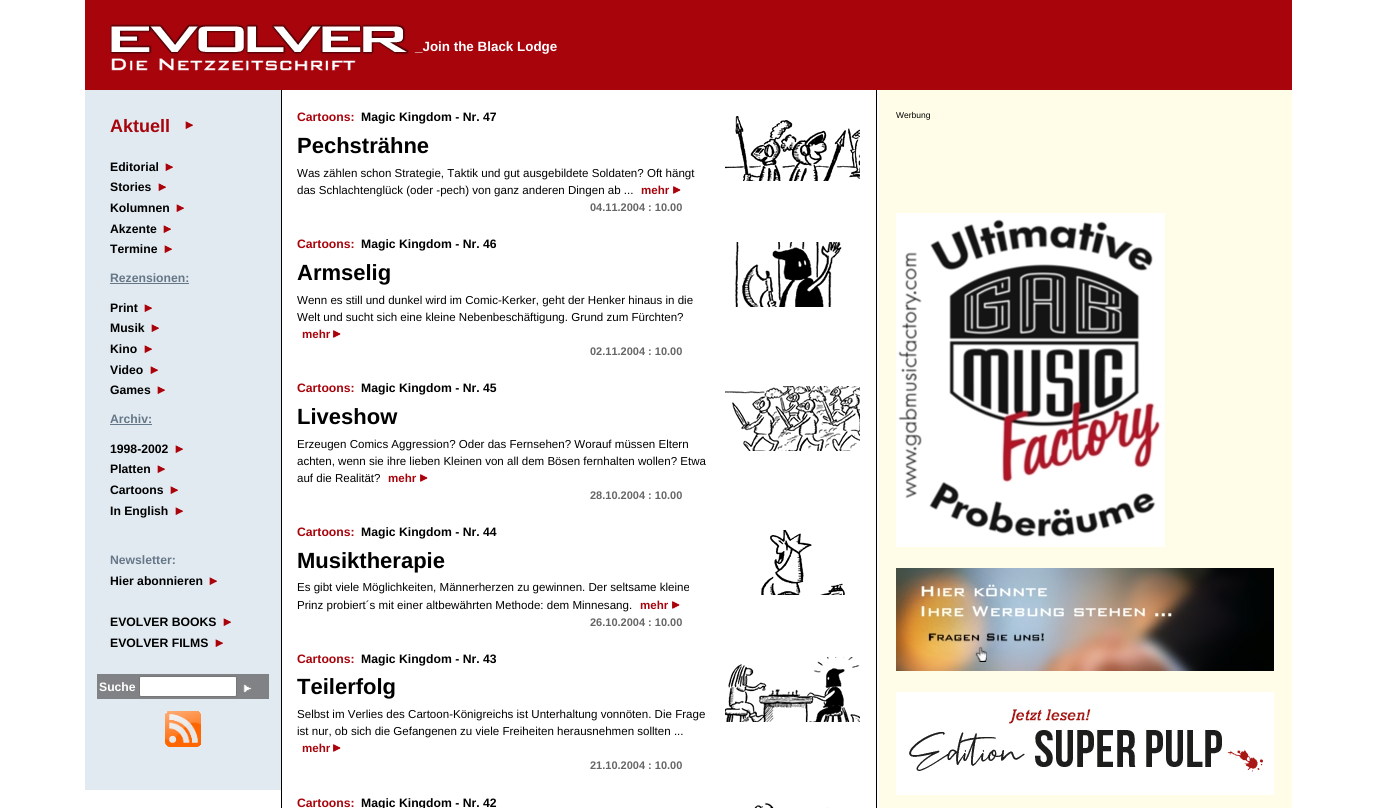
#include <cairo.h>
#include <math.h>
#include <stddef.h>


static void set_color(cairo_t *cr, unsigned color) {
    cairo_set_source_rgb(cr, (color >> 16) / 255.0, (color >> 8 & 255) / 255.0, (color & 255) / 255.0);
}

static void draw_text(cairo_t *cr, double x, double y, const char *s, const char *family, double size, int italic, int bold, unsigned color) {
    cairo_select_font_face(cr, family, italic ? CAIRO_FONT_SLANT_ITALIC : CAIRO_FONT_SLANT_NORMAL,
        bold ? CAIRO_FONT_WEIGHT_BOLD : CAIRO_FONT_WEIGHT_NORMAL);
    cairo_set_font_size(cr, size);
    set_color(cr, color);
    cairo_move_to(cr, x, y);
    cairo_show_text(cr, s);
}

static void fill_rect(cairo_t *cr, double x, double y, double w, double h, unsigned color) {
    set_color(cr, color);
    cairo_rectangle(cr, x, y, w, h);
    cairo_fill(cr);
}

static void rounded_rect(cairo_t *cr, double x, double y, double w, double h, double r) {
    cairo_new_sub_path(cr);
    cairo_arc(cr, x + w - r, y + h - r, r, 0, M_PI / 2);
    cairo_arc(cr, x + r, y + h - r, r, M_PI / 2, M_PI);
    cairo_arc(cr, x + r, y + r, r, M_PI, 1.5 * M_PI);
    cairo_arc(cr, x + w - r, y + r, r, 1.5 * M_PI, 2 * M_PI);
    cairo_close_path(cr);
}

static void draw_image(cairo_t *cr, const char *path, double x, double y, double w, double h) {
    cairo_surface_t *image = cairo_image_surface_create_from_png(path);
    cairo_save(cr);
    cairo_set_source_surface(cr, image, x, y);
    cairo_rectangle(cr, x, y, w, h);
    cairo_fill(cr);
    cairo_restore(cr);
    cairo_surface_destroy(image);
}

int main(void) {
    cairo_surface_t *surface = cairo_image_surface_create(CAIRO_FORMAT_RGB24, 1377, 808);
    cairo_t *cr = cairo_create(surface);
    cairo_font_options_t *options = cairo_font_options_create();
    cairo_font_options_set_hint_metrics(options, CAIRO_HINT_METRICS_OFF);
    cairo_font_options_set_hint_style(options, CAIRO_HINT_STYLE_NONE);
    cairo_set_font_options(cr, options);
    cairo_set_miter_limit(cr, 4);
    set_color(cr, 0xFFFFFF);
    cairo_paint(cr);
    fill_rect(cr, 85, 0, 1207, 90, 0xA7040C);
    draw_image(cr, "assets/img1.png", 110, 24, 299, 47);
    draw_text(cr, 415, 51, "_Join the Black Lodge", "Liberation Sans", 13.4, 0, 1, 0xFFFFFF);
    fill_rect(cr, 85, 90, 196, 700, 0xE1EAF1);
    draw_text(cr, 110, 132, "Aktuell", "Liberation Sans", 18, 0, 1, 0xA7040C);
    draw_image(cr, "assets/img2.png", 185, 121, 8, 8);
    draw_text(cr, 110, 171, "Editorial", "Liberation Sans", 12.2, 0, 1, 0x000000);
    draw_image(cr, "assets/img2.png", 165, 163, 8, 8);
    draw_text(cr, 110, 191, "Stories", "Liberation Sans", 12.2, 0, 1, 0x000000);
    draw_image(cr, "assets/img2.png", 158, 183, 8, 8);
    draw_text(cr, 110, 212, "Kolumnen", "Liberation Sans", 12.2, 0, 1, 0x000000);
    draw_image(cr, "assets/img2.png", 176, 204, 8, 8);
    draw_text(cr, 110, 233, "Akzente", "Liberation Sans", 12.2, 0, 1, 0x000000);
    draw_image(cr, "assets/img2.png", 163, 225, 8, 8);
    draw_text(cr, 110, 253, "Termine", "Liberation Sans", 12.2, 0, 1, 0x000000);
    draw_image(cr, "assets/img2.png", 164, 245, 8, 8);
    draw_text(cr, 110, 282, "Rezensionen:", "Liberation Sans", 12.2, 0, 1, 0x667788);
    fill_rect(cr, 110, 283, 79, 1, 0x667788);
    draw_text(cr, 110, 312, "Print", "Liberation Sans", 12.2, 0, 1, 0x000000);
    draw_image(cr, "assets/img2.png", 144, 304, 8, 8);
    draw_text(cr, 110, 332, "Musik", "Liberation Sans", 12.2, 0, 1, 0x000000);
    draw_image(cr, "assets/img2.png", 151, 324, 8, 8);
    draw_text(cr, 110, 353, "Kino", "Liberation Sans", 12.2, 0, 1, 0x000000);
    draw_image(cr, "assets/img2.png", 144, 345, 8, 8);
    draw_text(cr, 110, 374, "Video", "Liberation Sans", 12.2, 0, 1, 0x000000);
    draw_image(cr, "assets/img2.png", 150, 366, 8, 8);
    draw_text(cr, 110, 394, "Games", "Liberation Sans", 12.2, 0, 1, 0x000000);
    draw_image(cr, "assets/img2.png", 157, 386, 8, 8);
    draw_text(cr, 110, 423, "Archiv:", "Liberation Sans", 12.2, 0, 1, 0x667788);
    fill_rect(cr, 110, 424, 42, 1, 0x667788);
    draw_text(cr, 110, 453, "1998-2002", "Liberation Sans", 12.2, 0, 1, 0x000000);
    draw_image(cr, "assets/img2.png", 175, 445, 8, 8);
    draw_text(cr, 110, 473, "Platten", "Liberation Sans", 12.2, 0, 1, 0x000000);
    draw_image(cr, "assets/img2.png", 157, 465, 8, 8);
    draw_text(cr, 110, 494, "Cartoons", "Liberation Sans", 12.2, 0, 1, 0x000000);
    draw_image(cr, "assets/img2.png", 170, 486, 8, 8);
    draw_text(cr, 110, 515, "In English", "Liberation Sans", 12.2, 0, 1, 0x000000);
    draw_image(cr, "assets/img2.png", 175, 507, 8, 8);
    draw_text(cr, 110, 564, "Newsletter:", "Liberation Sans", 12.2, 0, 1, 0x667788);
    draw_text(cr, 110, 585, "Hier abonnieren", "Liberation Sans", 12.2, 0, 1, 0x000000);
    draw_image(cr, "assets/img2.png", 209, 577, 8, 8);
    draw_text(cr, 110, 626, "EVOLVER BOOKS", "Liberation Sans", 12.2, 0, 1, 0x000000);
    draw_image(cr, "assets/img2.png", 223, 618, 8, 8);
    draw_text(cr, 110, 647, "EVOLVER FILMS", "Liberation Sans", 12.2, 0, 1, 0x000000);
    draw_image(cr, "assets/img2.png", 215, 639, 8, 8);
    fill_rect(cr, 97, 674, 172, 25, 0x808285);
    draw_text(cr, 99, 691, "Suche", "Liberation Sans", 12.2, 0, 1, 0xFFFFFF);
    rounded_rect(cr, 139.5, 676.5, 97, 20, 1.5);
    cairo_fill_preserve(cr);
    set_color(cr, 0x767676);
    cairo_set_line_width(cr, 1);
    cairo_stroke(cr);
    draw_image(cr, "assets/img3.png", 242, 679, 15, 15);
    draw_image(cr, "assets/img4.png", 165, 711, 36, 36);
    fill_rect(cr, 876, 90, 1, 718, 0x000000);
    fill_rect(cr, 281, 90, 1, 718, 0x000000);
    draw_text(cr, 297, 121, "Cartoons:", "Liberation Sans", 12.2, 0, 1, 0xA7040C);
    draw_text(cr, 361, 121, "Magic Kingdom - Nr. 47", "Liberation Sans", 12.2, 0, 1, 0x000000);
    draw_image(cr, "assets/img5.png", 725, 116, 135, 65);
    draw_text(cr, 297, 153, "Pechsträhne", "Liberation Sans", 22, 0, 1, 0x000000);
    draw_text(cr, 297, 177, "Was zählen schon Strategie, Taktik und gut ausgebildete Soldaten? Oft hängt", "Liberation Sans", 11.55, 0, 0, 0x000000);
    draw_text(cr, 297, 194, "das Schlachtenglück (oder -pech) von ganz anderen Dingen ab ...", "Liberation Sans", 11.55, 0, 0, 0x000000);
    draw_text(cr, 641, 194, "mehr", "Liberation Sans", 11.55, 0, 1, 0xA7040C);
    draw_image(cr, "assets/img6.png", 673, 186, 8, 8);
    draw_text(cr, 590, 211, "04.11.2004 : 10.00", "Liberation Sans", 11, 0, 1, 0x666666);
    draw_text(cr, 297, 248, "Cartoons:", "Liberation Sans", 12.2, 0, 1, 0xA7040C);
    draw_text(cr, 361, 248, "Magic Kingdom - Nr. 46", "Liberation Sans", 12.2, 0, 1, 0x000000);
    draw_image(cr, "assets/img7.png", 735, 242, 107, 65);
    draw_text(cr, 297, 280, "Armselig", "Liberation Sans", 22, 0, 1, 0x000000);
    draw_text(cr, 297, 304, "Wenn es still und dunkel wird im Comic-Kerker, geht der Henker hinaus in die", "Liberation Sans", 11.55, 0, 0, 0x000000);
    draw_text(cr, 297, 321, "Welt und sucht sich eine kleine Nebenbeschäftigung. Grund zum Fürchten?", "Liberation Sans", 11.55, 0, 0, 0x000000);
    draw_text(cr, 302, 338, "mehr", "Liberation Sans", 11.55, 0, 1, 0xA7040C);
    draw_image(cr, "assets/img6.png", 333, 330, 8, 8);
    draw_text(cr, 590, 355, "02.11.2004 : 10.00", "Liberation Sans", 11, 0, 1, 0x666666);
    draw_text(cr, 297, 392, "Cartoons:", "Liberation Sans", 12.2, 0, 1, 0xA7040C);
    draw_text(cr, 361, 392, "Magic Kingdom - Nr. 45", "Liberation Sans", 12.2, 0, 1, 0x000000);
    draw_image(cr, "assets/img8.png", 725, 386, 135, 65);
    draw_text(cr, 297, 424, "Liveshow", "Liberation Sans", 22, 0, 1, 0x000000);
    draw_text(cr, 297, 448, "Erzeugen Comics Aggression? Oder das Fernsehen? Worauf müssen Eltern", "Liberation Sans", 11.55, 0, 0, 0x000000);
    draw_text(cr, 297, 465, "achten, wenn sie ihre lieben Kleinen von all dem Bösen fernhalten wollen? Etwa", "Liberation Sans", 11.55, 0, 0, 0x000000);
    draw_text(cr, 297, 482, "auf die Realität?", "Liberation Sans", 11.55, 0, 0, 0x000000);
    draw_text(cr, 388, 482, "mehr", "Liberation Sans", 11.55, 0, 1, 0xA7040C);
    draw_image(cr, "assets/img6.png", 420, 474, 8, 8);
    draw_text(cr, 590, 499, "28.10.2004 : 10.00", "Liberation Sans", 11, 0, 1, 0x666666);
    draw_text(cr, 297, 536, "Cartoons:", "Liberation Sans", 12.2, 0, 1, 0xA7040C);
    draw_text(cr, 361, 536, "Magic Kingdom - Nr. 44", "Liberation Sans", 12.2, 0, 1, 0x000000);
    draw_image(cr, "assets/img9.png", 761, 530, 84, 65);
    draw_text(cr, 297, 568, "Musiktherapie", "Liberation Sans", 22, 0, 1, 0x000000);
    draw_text(cr, 297, 591, "Es gibt viele Möglichkeiten, Männerherzen zu gewinnen. Der seltsame kleine", "Liberation Sans", 11.55, 0, 0, 0x000000);
    draw_text(cr, 297, 609, "Prinz probiert´s mit einer altbewährten Methode: dem Minnesang.", "Liberation Sans", 11.55, 0, 0, 0x000000);
    draw_text(cr, 640, 609, "mehr", "Liberation Sans", 11.55, 0, 1, 0xA7040C);
    draw_image(cr, "assets/img6.png", 672, 601, 8, 8);
    draw_text(cr, 590, 626, "26.10.2004 : 10.00", "Liberation Sans", 11, 0, 1, 0x666666);
    draw_text(cr, 297, 663, "Cartoons:", "Liberation Sans", 12.2, 0, 1, 0xA7040C);
    draw_text(cr, 361, 663, "Magic Kingdom - Nr. 43", "Liberation Sans", 12.2, 0, 1, 0x000000);
    draw_image(cr, "assets/img10.png", 725, 657, 135, 65);
    draw_text(cr, 297, 694, "Teilerfolg", "Liberation Sans", 22, 0, 1, 0x000000);
    draw_text(cr, 297, 718, "Selbst im Verlies des Cartoon-Königreichs ist Unterhaltung vonnöten. Die Frage", "Liberation Sans", 11.55, 0, 0, 0x000000);
    draw_text(cr, 297, 735, "ist nur, ob sich die Gefangenen zu viele Freiheiten herausnehmen sollten ...", "Liberation Sans", 11.55, 0, 0, 0x000000);
    draw_text(cr, 302, 752, "mehr", "Liberation Sans", 11.55, 0, 1, 0xA7040C);
    draw_image(cr, "assets/img6.png", 333, 744, 8, 8);
    draw_text(cr, 590, 769, "21.10.2004 : 10.00", "Liberation Sans", 11, 0, 1, 0x666666);
    draw_text(cr, 297, 807, "Cartoons:", "Liberation Sans", 12.2, 0, 1, 0xA7040C);
    draw_text(cr, 361, 807, "Magic Kingdom - Nr. 42", "Liberation Sans", 12.2, 0, 1, 0x000000);
    draw_image(cr, "assets/img11.png", 754, 802, 74, 6);
    fill_rect(cr, 879, 90, 413, 718, 0xFFFDE8);
    draw_text(cr, 896, 118, "Werbung", "Liberation Sans", 8.5, 0, 0, 0x000000);
    draw_image(cr, "assets/img12.png", 896, 213, 269, 334);
    draw_image(cr, "assets/img13.png", 896, 568, 378, 103);
    draw_image(cr, "assets/img14.png", 896, 692, 378, 103);
    cairo_surface_write_to_png(surface, "output.png");
    cairo_font_options_destroy(options);
    cairo_destroy(cr);
    cairo_surface_destroy(surface);
    return 0;
}
